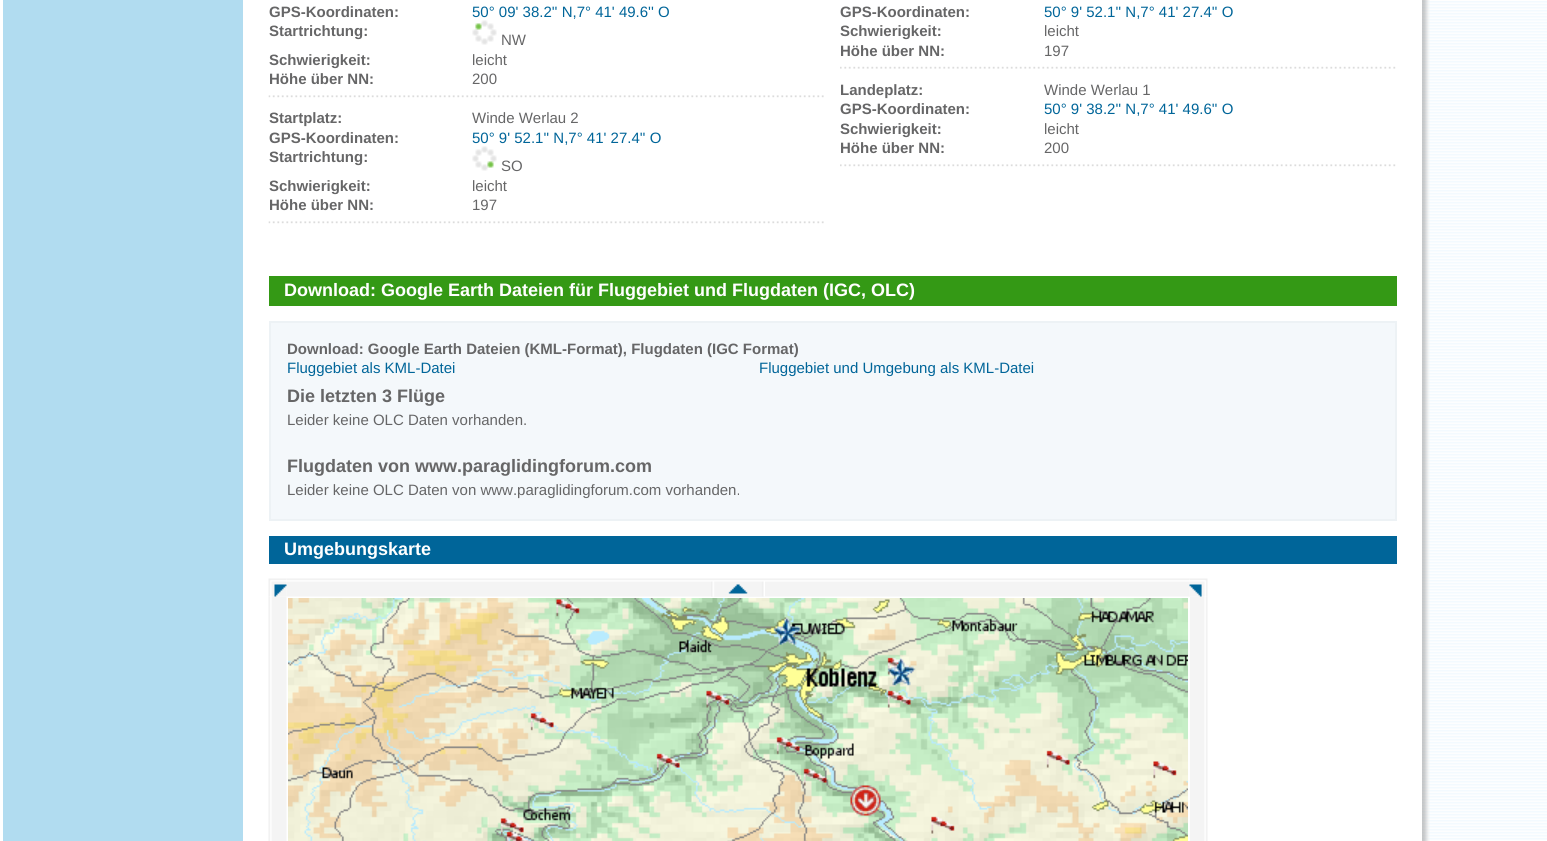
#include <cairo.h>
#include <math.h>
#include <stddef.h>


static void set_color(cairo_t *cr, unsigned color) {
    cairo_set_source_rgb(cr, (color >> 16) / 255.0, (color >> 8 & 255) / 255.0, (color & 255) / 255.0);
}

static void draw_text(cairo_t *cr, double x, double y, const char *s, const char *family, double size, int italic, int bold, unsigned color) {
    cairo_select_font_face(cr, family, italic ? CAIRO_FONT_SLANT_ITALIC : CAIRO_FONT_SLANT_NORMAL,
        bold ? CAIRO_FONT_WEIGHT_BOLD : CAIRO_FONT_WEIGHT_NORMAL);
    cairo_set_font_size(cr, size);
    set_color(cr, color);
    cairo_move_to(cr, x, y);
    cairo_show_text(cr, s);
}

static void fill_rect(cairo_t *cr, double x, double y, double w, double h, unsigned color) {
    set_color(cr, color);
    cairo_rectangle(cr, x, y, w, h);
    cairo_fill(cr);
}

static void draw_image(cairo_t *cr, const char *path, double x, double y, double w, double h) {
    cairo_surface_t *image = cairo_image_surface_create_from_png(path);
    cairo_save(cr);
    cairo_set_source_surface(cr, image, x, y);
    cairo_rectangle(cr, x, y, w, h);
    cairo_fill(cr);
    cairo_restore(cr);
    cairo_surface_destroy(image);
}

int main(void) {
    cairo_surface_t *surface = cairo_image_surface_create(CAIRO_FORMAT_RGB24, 1547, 841);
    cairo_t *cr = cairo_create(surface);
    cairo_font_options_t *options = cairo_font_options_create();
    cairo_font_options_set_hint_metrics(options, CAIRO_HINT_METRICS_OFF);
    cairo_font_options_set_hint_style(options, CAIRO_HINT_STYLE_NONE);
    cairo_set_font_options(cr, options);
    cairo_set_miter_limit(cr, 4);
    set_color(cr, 0xFFFFFF);
    cairo_paint(cr);
    draw_image(cr, "assets/img1.png", 1429, 1, 118, 839);
    fill_rect(cr, 3, 0, 240, 841, 0xB1DCF0);
    draw_text(cr, 269, 17, "GPS-Koordinaten:", "Liberation Sans", 15, 0, 1, 0x666667);
    draw_text(cr, 472, 17, "50° 09' 38.2'' N,7° 41' 49.6'' O", "Liberation Sans", 15, 0, 0, 0x006599);
    draw_text(cr, 269, 36, "Startrichtung:", "Liberation Sans", 15, 0, 1, 0x666667);
    draw_image(cr, "assets/img2.png", 472, 20, 25, 25);
    draw_text(cr, 501, 45, "NW", "Liberation Sans", 15, 0, 0, 0x666667);
    draw_text(cr, 269, 65, "Schwierigkeit:", "Liberation Sans", 15, 0, 1, 0x666667);
    draw_text(cr, 472, 65, "leicht", "Liberation Sans", 15, 0, 0, 0x666667);
    draw_text(cr, 269, 84, "Höhe über NN:", "Liberation Sans", 15, 0, 1, 0x666667);
    draw_text(cr, 472, 84, "200", "Liberation Sans", 15, 0, 0, 0x666667);
    draw_image(cr, "assets/img3.png", 268, 95, 556, 3);
    draw_text(cr, 269, 123, "Startplatz:", "Liberation Sans", 15, 0, 1, 0x666667);
    draw_text(cr, 472, 123, "Winde Werlau 2", "Liberation Sans", 15, 0, 0, 0x666667);
    draw_text(cr, 269, 143, "GPS-Koordinaten:", "Liberation Sans", 15, 0, 1, 0x666667);
    draw_text(cr, 472, 143, "50° 9' 52.1'' N,7° 41' 27.4'' O", "Liberation Sans", 15, 0, 0, 0x006599);
    draw_text(cr, 269, 162, "Startrichtung:", "Liberation Sans", 15, 0, 1, 0x666667);
    draw_image(cr, "assets/img4.png", 472, 146, 25, 25);
    draw_text(cr, 501, 171, "SO", "Liberation Sans", 15, 0, 0, 0x666667);
    draw_text(cr, 269, 191, "Schwierigkeit:", "Liberation Sans", 15, 0, 1, 0x666667);
    draw_text(cr, 472, 191, "leicht", "Liberation Sans", 15, 0, 0, 0x666667);
    draw_text(cr, 269, 210, "Höhe über NN:", "Liberation Sans", 15, 0, 1, 0x666667);
    draw_text(cr, 472, 210, "197", "Liberation Sans", 15, 0, 0, 0x666667);
    draw_image(cr, "assets/img3.png", 268, 221, 556, 3);
    draw_text(cr, 840, 17, "GPS-Koordinaten:", "Liberation Sans", 15, 0, 1, 0x666667);
    draw_text(cr, 1044, 17, "50° 9' 52.1'' N,7° 41' 27.4'' O", "Liberation Sans", 15, 0, 0, 0x006599);
    draw_text(cr, 840, 36, "Schwierigkeit:", "Liberation Sans", 15, 0, 1, 0x666667);
    draw_text(cr, 1044, 36, "leicht", "Liberation Sans", 15, 0, 0, 0x666667);
    draw_text(cr, 840, 56, "Höhe über NN:", "Liberation Sans", 15, 0, 1, 0x666667);
    draw_text(cr, 1044, 56, "197", "Liberation Sans", 15, 0, 0, 0x666667);
    draw_image(cr, "assets/img5.png", 840, 66, 556, 3);
    draw_text(cr, 840, 95, "Landeplatz:", "Liberation Sans", 15, 0, 1, 0x666667);
    draw_text(cr, 1044, 95, "Winde Werlau 1", "Liberation Sans", 15, 0, 0, 0x666667);
    draw_text(cr, 840, 114, "GPS-Koordinaten:", "Liberation Sans", 15, 0, 1, 0x666667);
    draw_text(cr, 1044, 114, "50° 9' 38.2'' N,7° 41' 49.6'' O", "Liberation Sans", 15, 0, 0, 0x006599);
    draw_text(cr, 840, 134, "Schwierigkeit:", "Liberation Sans", 15, 0, 1, 0x666667);
    draw_text(cr, 1044, 134, "leicht", "Liberation Sans", 15, 0, 0, 0x666667);
    draw_text(cr, 840, 153, "Höhe über NN:", "Liberation Sans", 15, 0, 1, 0x666667);
    draw_text(cr, 1044, 153, "200", "Liberation Sans", 15, 0, 0, 0x666667);
    draw_image(cr, "assets/img6.png", 840, 164, 556, 3);
    fill_rect(cr, 269, 276, 1128, 30, 0x349915);
    draw_text(cr, 284, 296, "Download: Google Earth Dateien für Fluggebiet und Flugdaten (IGC, OLC)", "Liberation Sans", 18, 0, 1, 0xFFFFFF);
    set_color(cr, 0xF4F8FB);
    cairo_rectangle(cr, 270, 322, 1126, 198);
    cairo_fill_preserve(cr);
    set_color(cr, 0xEDF2F5);
    cairo_stroke(cr);
    draw_text(cr, 287, 354, "Download: Google Earth Dateien (KML-Format), Flugdaten (IGC Format)", "Liberation Sans", 15, 0, 1, 0x666667);
    draw_text(cr, 287, 373, "Fluggebiet als KML-Datei", "Liberation Sans", 15, 0, 0, 0x006599);
    draw_text(cr, 759, 373, "Fluggebiet und Umgebung als KML-Datei", "Liberation Sans", 15, 0, 0, 0x006599);
    draw_text(cr, 287, 402, "Die letzten 3 Flüge", "Liberation Sans", 18, 0, 1, 0x666667);
    draw_text(cr, 287, 425, "Leider keine OLC Daten vorhanden.", "Liberation Sans", 15, 0, 0, 0x666667);
    draw_text(cr, 287, 472, "Flugdaten von www.paraglidingforum.com", "Liberation Sans", 18, 0, 1, 0x666667);
    draw_text(cr, 287, 495, "Leider keine OLC Daten von www.paraglidingforum.com vorhanden.", "Liberation Sans", 15, 0, 0, 0x666667);
    fill_rect(cr, 269, 536, 1128, 28, 0x006599);
    draw_text(cr, 284, 555, "Umgebungskarte", "Liberation Sans", 18, 0, 1, 0xFFFFFF);
    draw_image(cr, "assets/img8.png", 286, 578, 904, 19);
    draw_image(cr, "assets/img11.png", 268, 596, 19, 245);
    draw_image(cr, "assets/img7.png", 268, 578, 19, 19);
    draw_image(cr, "assets/img9.png", 711, 581, 54, 16);
    draw_image(cr, "assets/img13.png", 1189, 596, 19, 245);
    draw_image(cr, "assets/img10.png", 1189, 578, 19, 19);
    cairo_rectangle(cr, 288, 598, 901, 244);
    cairo_stroke(cr);
    draw_image(cr, "assets/img12.png", 288, 598, 900, 243);
    draw_image(cr, "assets/img14.png", 1422, 0, 8, 841);
    cairo_surface_write_to_png(surface, "output.png");
    cairo_font_options_destroy(options);
    cairo_destroy(cr);
    cairo_surface_destroy(surface);
    return 0;
}
